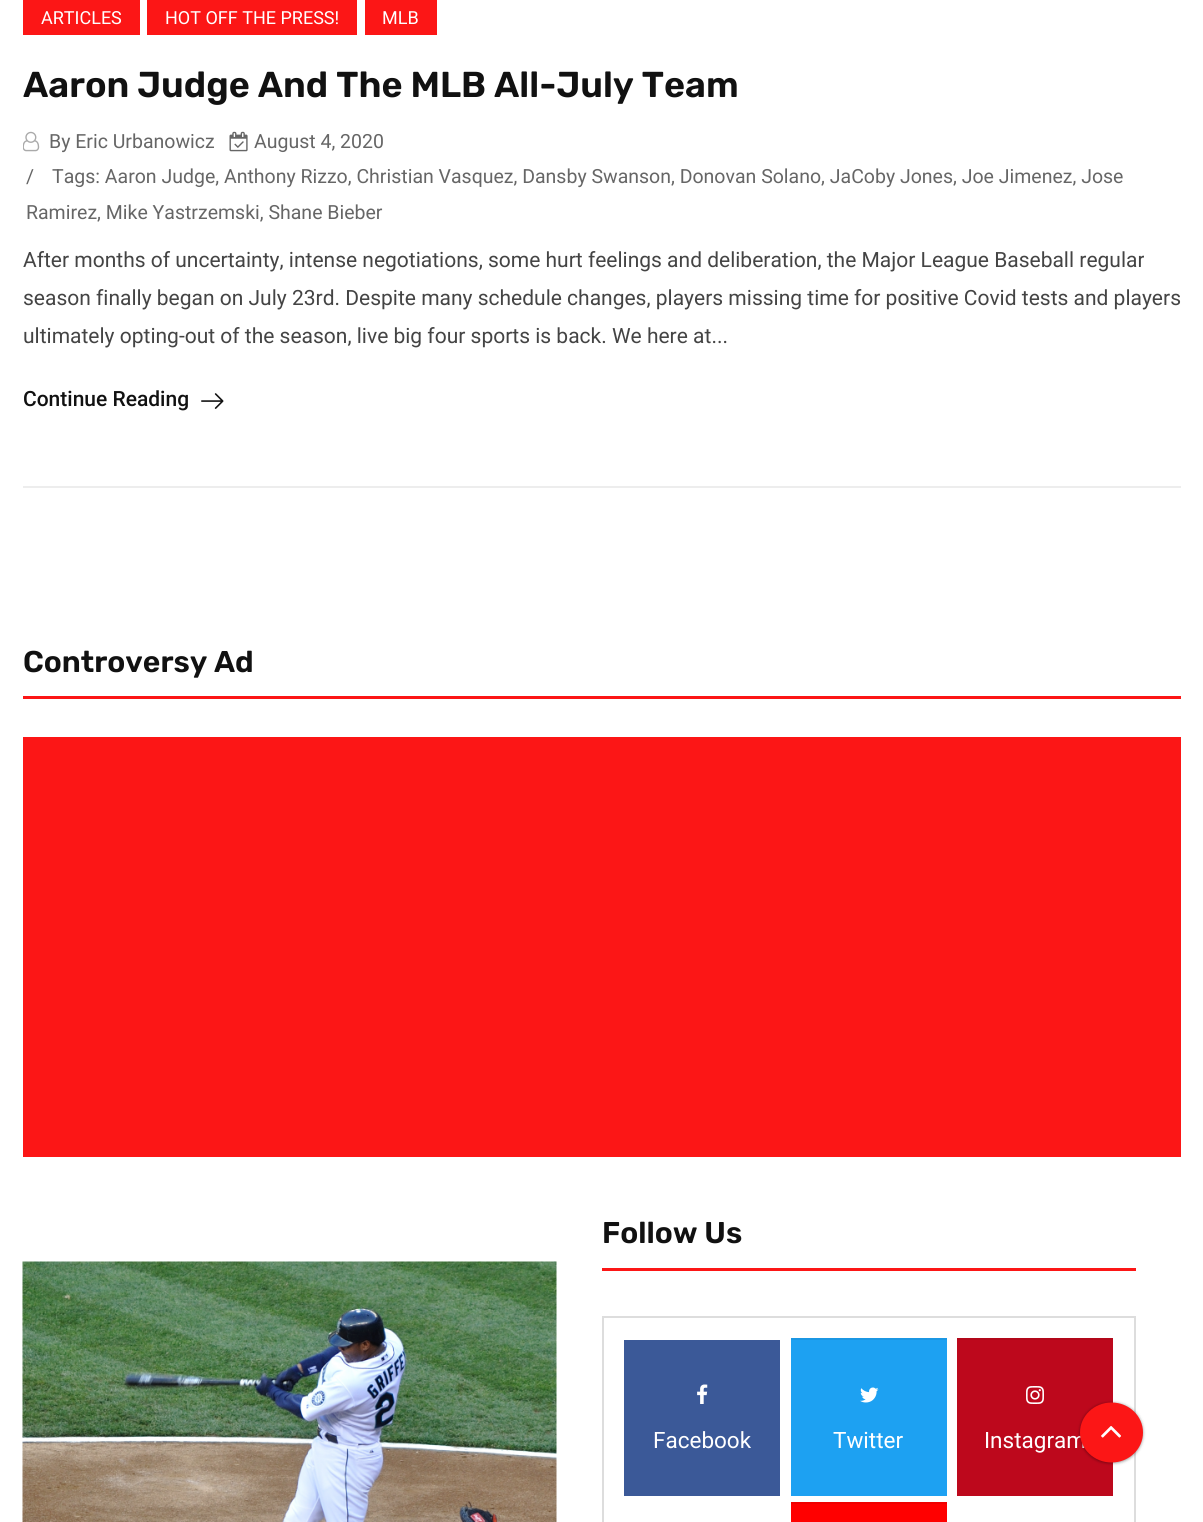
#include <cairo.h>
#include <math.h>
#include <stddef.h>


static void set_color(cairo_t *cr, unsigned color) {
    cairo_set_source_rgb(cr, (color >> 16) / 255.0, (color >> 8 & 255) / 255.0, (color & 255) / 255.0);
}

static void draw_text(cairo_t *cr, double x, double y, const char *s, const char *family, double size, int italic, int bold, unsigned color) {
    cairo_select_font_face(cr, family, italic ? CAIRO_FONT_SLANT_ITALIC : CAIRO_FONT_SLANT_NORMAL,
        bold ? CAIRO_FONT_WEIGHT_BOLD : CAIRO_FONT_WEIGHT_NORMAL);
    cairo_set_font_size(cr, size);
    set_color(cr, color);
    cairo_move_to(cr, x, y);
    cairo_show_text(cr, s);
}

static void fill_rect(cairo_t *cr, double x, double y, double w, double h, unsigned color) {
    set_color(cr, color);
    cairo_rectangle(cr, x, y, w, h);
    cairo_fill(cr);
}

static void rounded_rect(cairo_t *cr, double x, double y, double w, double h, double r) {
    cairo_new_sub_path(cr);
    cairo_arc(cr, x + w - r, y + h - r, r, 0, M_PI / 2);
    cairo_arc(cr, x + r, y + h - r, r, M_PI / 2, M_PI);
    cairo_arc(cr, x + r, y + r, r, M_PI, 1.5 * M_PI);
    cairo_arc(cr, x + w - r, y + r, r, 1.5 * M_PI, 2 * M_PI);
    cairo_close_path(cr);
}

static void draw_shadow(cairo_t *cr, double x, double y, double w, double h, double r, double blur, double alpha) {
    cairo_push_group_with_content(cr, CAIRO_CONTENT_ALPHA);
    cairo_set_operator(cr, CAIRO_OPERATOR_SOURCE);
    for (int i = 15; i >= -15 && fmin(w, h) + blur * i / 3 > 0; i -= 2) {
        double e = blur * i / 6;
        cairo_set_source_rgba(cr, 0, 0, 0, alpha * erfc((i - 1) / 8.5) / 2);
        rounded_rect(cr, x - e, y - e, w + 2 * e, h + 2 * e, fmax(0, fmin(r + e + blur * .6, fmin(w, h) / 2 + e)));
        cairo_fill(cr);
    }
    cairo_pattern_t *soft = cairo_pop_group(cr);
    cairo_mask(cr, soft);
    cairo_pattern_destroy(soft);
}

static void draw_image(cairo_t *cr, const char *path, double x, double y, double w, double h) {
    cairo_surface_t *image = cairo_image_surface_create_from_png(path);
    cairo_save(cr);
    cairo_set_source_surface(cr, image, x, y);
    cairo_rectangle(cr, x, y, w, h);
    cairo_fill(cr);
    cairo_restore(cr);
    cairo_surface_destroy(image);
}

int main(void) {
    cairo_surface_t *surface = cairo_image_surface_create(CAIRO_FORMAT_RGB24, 1203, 1522);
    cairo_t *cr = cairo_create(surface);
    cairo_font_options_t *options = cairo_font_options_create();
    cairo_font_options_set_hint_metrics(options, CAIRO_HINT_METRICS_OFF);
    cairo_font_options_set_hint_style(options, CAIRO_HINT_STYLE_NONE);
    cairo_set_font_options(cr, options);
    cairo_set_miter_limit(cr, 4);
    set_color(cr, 0xFFFFFF);
    cairo_paint(cr);
    fill_rect(cr, 23, 486, 1158, 2, 0xEDEDED);
    fill_rect(cr, 23, 0, 117, 35, 0xFC1616);
    draw_text(cr, 41, 24, "ARTICLES", "Roboto", 18, 0, 0, 0xFFFFFF);
    fill_rect(cr, 147, 0, 210, 35, 0xFC1616);
    draw_text(cr, 165, 24, "HOT OFF THE PRESS!", "Roboto", 18, 0, 0, 0xFFFFFF);
    fill_rect(cr, 365, 0, 72, 35, 0xFC1616);
    draw_text(cr, 382, 24, "MLB", "Roboto", 18, 0, 0, 0xFFFFFF);
    draw_text(cr, 23, 97, "Aaron Judge And The MLB All-July Team", "Rubik SemiBold", 36, 0, 0, 0x111111);
    draw_image(cr, "assets/img1.png", 23, 131, 17, 21);
    draw_text(cr, 49, 148, "By Eric Urbanowicz", "Roboto", 19.5, 0, 0, 0x666666);
    draw_image(cr, "assets/img2.png", 229, 131, 19, 21);
    draw_text(cr, 254, 148, "August 4, 2020", "Roboto", 19.5, 0, 0, 0x666666);
    draw_text(cr, 26, 183, "/", "Roboto", 19.5, 0, 0, 0x666666);
    draw_text(cr, 52, 183, "Tags: Aaron Judge, Anthony Rizzo, Christian Vasquez, Dansby Swanson, Donovan Solano, JaCoby Jones, Joe Jimenez, Jose", "Roboto", 19.5, 0, 0, 0x666666);
    draw_text(cr, 26, 219, "Ramirez, Mike Yastrzemski, Shane Bieber", "Roboto", 19.5, 0, 0, 0x666666);
    draw_text(cr, 23, 267, "After months of uncertainty, intense negotiations, some hurt feelings and deliberation, the Major League Baseball regular", "Roboto", 21, 0, 0, 0x444444);
    draw_text(cr, 23, 305, "season finally began on July 23rd. Despite many schedule changes, players missing time for positive Covid tests and players", "Roboto", 21, 0, 0, 0x444444);
    draw_text(cr, 23, 343, "ultimately opting-out of the season, live big four sports is back. We here at...", "Roboto", 21, 0, 0, 0x444444);
    draw_text(cr, 23, 406, "Continue Reading", "Roboto Medium", 21, 0, 0, 0x111111);
    draw_image(cr, "assets/img3.png", 201, 393, 23, 16);
    fill_rect(cr, 23, 696, 1158, 3, 0xFC1616);
    draw_text(cr, 23, 672, "Controversy Ad", "Rubik SemiBold", 30, 0, 0, 0x111111);
    fill_rect(cr, 23, 737, 1158, 420, 0xFC1616);
    draw_image(cr, "assets/img4.png", 22, 1261, 535, 261);
    fill_rect(cr, 602, 1268, 534, 3, 0xFC1616);
    draw_text(cr, 602, 1243, "Follow Us", "Rubik SemiBold", 30, 0, 0, 0x111111);
    cairo_rectangle(cr, 603, 1317, 532, 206);
    set_color(cr, 0xDDDDDD);
    cairo_stroke(cr);
    fill_rect(cr, 624, 1340, 156, 156, 0x3B5998);
    draw_image(cr, "assets/img5.png", 697, 1384, 11, 20);
    draw_text(cr, 653, 1448, "Facebook", "Roboto", 22.5, 0, 0, 0xFFFFFF);
    fill_rect(cr, 791, 1340, 156, 156, 0x1DA1F2);
    fill_rect(cr, 791, 1338, 156, 2, 0x1B97E3);
    draw_image(cr, "assets/img6.png", 860, 1387, 19, 16);
    draw_text(cr, 833, 1448, "Twitter", "Roboto", 22.5, 0, 0, 0xFFFFFF);
    fill_rect(cr, 957, 1340, 156, 156, 0xBD081C);
    fill_rect(cr, 957, 1338, 156, 2, 0xB2081A);
    draw_image(cr, "assets/img7.png", 1026, 1386, 18, 18);
    draw_text(cr, 984, 1448, "Instagram", "Roboto", 22.5, 0, 0, 0xFFFFFF);
    fill_rect(cr, 791, 1504, 156, 18, 0xFF0000);
    fill_rect(cr, 791, 1502, 156, 2, 0xF00000);
    set_color(cr, 0x000000);
    draw_shadow(cr, 1080, 1403, 63, 60, 30, 1.5, 0.4);
    set_color(cr, 0xFC1616);
    cairo_new_path(cr);
    cairo_move_to(cr, 1111.5, 1402.5);
    cairo_curve_to(cr, 1129, 1402.5, 1143, 1416, 1143, 1432.5);
    cairo_curve_to(cr, 1143, 1449, 1129, 1462.5, 1111.5, 1462.5);
    cairo_curve_to(cr, 1094, 1462.5, 1080, 1449, 1080, 1432.5);
    cairo_curve_to(cr, 1080, 1416, 1094, 1402.5, 1111.5, 1402.5);
    cairo_close_path(cr);
    cairo_fill(cr);
    draw_image(cr, "assets/img8.png", 1101, 1426, 20, 12);
    cairo_surface_write_to_png(surface, "output.png");
    cairo_font_options_destroy(options);
    cairo_destroy(cr);
    cairo_surface_destroy(surface);
    return 0;
}
